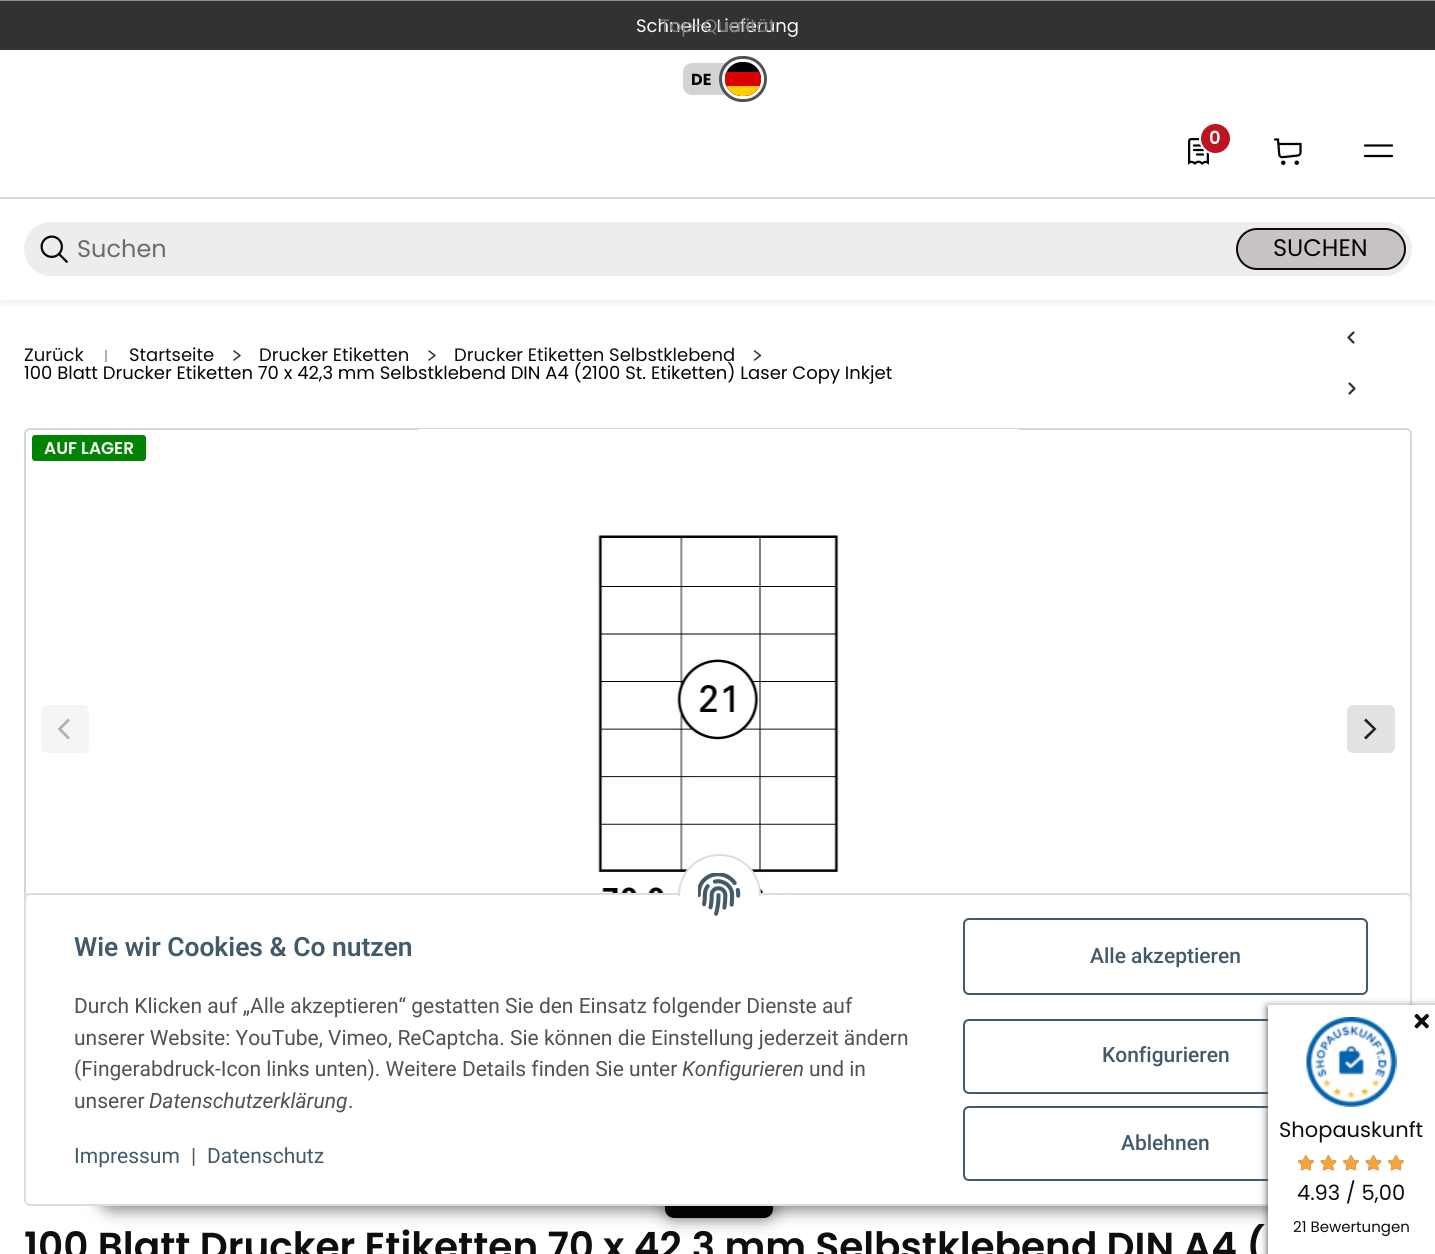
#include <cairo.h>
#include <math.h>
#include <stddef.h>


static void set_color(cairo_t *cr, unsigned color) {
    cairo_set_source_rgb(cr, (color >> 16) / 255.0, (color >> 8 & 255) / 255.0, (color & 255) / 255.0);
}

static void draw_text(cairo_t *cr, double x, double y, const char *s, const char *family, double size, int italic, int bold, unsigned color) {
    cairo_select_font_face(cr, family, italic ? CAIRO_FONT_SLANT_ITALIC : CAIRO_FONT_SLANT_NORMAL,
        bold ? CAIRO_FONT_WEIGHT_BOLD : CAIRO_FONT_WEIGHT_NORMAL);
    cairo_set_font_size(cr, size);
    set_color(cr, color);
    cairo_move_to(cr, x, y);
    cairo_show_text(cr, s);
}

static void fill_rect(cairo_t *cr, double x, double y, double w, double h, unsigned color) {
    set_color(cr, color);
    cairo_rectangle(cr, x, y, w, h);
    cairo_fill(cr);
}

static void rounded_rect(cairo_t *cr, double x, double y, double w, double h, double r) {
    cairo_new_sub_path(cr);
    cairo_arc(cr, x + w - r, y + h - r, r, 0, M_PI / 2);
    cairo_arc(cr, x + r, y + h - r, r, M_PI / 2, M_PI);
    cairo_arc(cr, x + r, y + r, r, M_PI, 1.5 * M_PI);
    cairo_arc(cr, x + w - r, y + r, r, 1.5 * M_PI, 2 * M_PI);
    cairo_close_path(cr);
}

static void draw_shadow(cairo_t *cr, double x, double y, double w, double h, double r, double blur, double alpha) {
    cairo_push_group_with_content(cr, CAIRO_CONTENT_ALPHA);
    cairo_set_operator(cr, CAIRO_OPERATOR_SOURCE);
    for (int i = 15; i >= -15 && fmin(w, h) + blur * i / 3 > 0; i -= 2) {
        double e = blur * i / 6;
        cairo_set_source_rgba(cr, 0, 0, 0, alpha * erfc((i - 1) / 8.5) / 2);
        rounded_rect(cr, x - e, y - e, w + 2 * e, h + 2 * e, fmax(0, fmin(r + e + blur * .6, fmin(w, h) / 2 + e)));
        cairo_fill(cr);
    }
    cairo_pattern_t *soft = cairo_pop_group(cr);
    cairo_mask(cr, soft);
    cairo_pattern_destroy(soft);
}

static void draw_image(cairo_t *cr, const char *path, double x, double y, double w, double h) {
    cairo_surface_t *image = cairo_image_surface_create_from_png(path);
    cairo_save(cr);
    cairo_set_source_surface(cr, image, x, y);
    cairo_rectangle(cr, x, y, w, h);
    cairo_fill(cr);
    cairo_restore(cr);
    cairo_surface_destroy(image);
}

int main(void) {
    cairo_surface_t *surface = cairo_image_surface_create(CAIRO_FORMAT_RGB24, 1435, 1254);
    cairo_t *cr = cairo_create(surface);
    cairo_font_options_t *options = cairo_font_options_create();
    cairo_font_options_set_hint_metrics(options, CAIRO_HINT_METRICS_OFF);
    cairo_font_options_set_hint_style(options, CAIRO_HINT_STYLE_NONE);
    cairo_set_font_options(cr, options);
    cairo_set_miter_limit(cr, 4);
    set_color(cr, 0xFFFFFF);
    cairo_paint(cr);
    fill_rect(cr, 0, 0, 1435, 1, 0x958F8F);
    fill_rect(cr, 0, 1, 1435, 49, 0x323232);
    draw_text(cr, 636, 32, "Schnelle Lieferung", "Poppins", 18, 0, 0, 0xFCFCFC);
    draw_text(cr, 660, 32, "Top-Qualität", "Poppins", 18, 0, 0, 0x7E7E7E);
    set_color(cr, 0xD3D3D3);
    rounded_rect(cr, 683, 63, 52, 32, 9);
    cairo_fill(cr);
    draw_text(cr, 691, 85, "DE", "Poppins", 16, 0, 1, 0x040404);
    rounded_rect(cr, 723.5, 60.5, 39, 37, 18.5);
    set_color(cr, 0xFFFFFF);
    cairo_set_line_width(cr, 3);
    cairo_stroke(cr);
    set_color(cr, 0x000000);
    rounded_rect(cr, 725, 62, 36, 34, 17);
    cairo_fill(cr);
    cairo_save(cr);
    rounded_rect(cr, 725, 62, 36, 34, 17);
    cairo_clip(cr);
    set_color(cr, 0xDD0000);
    cairo_new_path(cr);
    cairo_move_to(cr, 725, 72);
    cairo_line_to(cr, 761, 72);
    cairo_line_to(cr, 761, 79);
    cairo_curve_to(cr, 761, 88.5, 753.5, 96, 744, 96);
    cairo_line_to(cr, 742, 96);
    cairo_curve_to(cr, 732.5, 96, 725, 88.5, 725, 79);
    cairo_close_path(cr);
    cairo_fill(cr);
    fill_rect(cr, 726, 86, 34, 10, 0xFFCE00);
    cairo_restore(cr);
    rounded_rect(cr, 720.5, 57.5, 45, 43, 21.5);
    set_color(cr, 0x525252);
    cairo_stroke(cr);
    draw_image(cr, "assets/img1.png", 1188, 138, 21, 27);
    set_color(cr, 0xBE1421);
    cairo_arc(cr, 1215.5, 138.5, 15.5, 0, 2 * M_PI);
    cairo_fill_preserve(cr);
    set_color(cr, 0xFFFFFF);
    cairo_set_line_width(cr, 2);
    cairo_stroke(cr);
    draw_text(cr, 1209, 144, "0", "Poppins SemiBold", 18, 0, 0, 0xFCFCFC);
    draw_image(cr, "assets/img2.png", 1273, 138, 29, 27);
    draw_image(cr, "assets/img3.png", 1363, 144, 31, 14);
    fill_rect(cr, 0, 197, 1435, 2, 0xD7D7D7);
    set_color(cr, 0xEDEDED);
    rounded_rect(cr, 24, 222, 1388, 54, 27);
    cairo_fill(cr);
    draw_image(cr, "assets/img4.png", 40, 235, 28, 28);
    draw_text(cr, 77, 257, "Suchen", "Poppins", 24, 0, 0, 0x6B6B6B);
    set_color(cr, 0xC9C4C4);
    rounded_rect(cr, 1237, 229, 168, 40, 20);
    cairo_fill_preserve(cr);
    set_color(cr, 0x0A0A0A);
    cairo_stroke(cr);
    draw_text(cr, 1273, 256, "SUCHEN", "Poppins", 24, 0, 0, 0x040404);
    cairo_save(cr);
    cairo_rectangle(cr, 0, 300, 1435, 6);
    cairo_clip(cr);
    set_color(cr, 0x000000);
    draw_shadow(cr, 0, 288, 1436, 15, 0, 4.5, 0.07);
    cairo_restore(cr);
    draw_text(cr, 24, 361, "Zurück", "Poppins", 18, 0, 0, 0x0E0E0E);
    fill_rect(cr, 105, 350, 2, 12, 0xB1B1B1);
    draw_text(cr, 129, 361, "Startseite", "Poppins", 18, 0, 0, 0x0E0E0E);
    cairo_new_path(cr);
    cairo_move_to(cr, 234, 360);
    cairo_line_to(cr, 240, 355.5);
    cairo_line_to(cr, 234, 351);
    set_color(cr, 0x323232);
    cairo_set_line_width(cr, 1.5);
    cairo_set_line_cap(cr, CAIRO_LINE_CAP_ROUND);
    cairo_set_line_join(cr, CAIRO_LINE_JOIN_ROUND);
    cairo_stroke(cr);
    draw_text(cr, 259, 361, "Drucker Etiketten", "Poppins", 18, 0, 0, 0x0E0E0E);
    cairo_new_path(cr);
    cairo_move_to(cr, 429, 360);
    cairo_line_to(cr, 435, 355.5);
    cairo_line_to(cr, 429, 351);
    set_color(cr, 0x323232);
    cairo_stroke(cr);
    draw_text(cr, 454, 361, "Drucker Etiketten Selbstklebend", "Poppins", 18, 0, 0, 0x0E0E0E);
    cairo_new_path(cr);
    cairo_move_to(cr, 754.5, 360);
    cairo_line_to(cr, 760.5, 355.5);
    cairo_line_to(cr, 754.5, 351);
    set_color(cr, 0x323232);
    cairo_stroke(cr);
    draw_text(cr, 24, 379, "100 Blatt Drucker Etiketten 70 x 42,3 mm Selbstklebend DIN A4 (2100 St. Etiketten) Laser Copy Inkjet", "Poppins", 18, 0, 0, 0x040404);
    cairo_new_path(cr);
    cairo_move_to(cr, 1353.5, 342.5);
    cairo_line_to(cr, 1348.5, 337.5);
    cairo_line_to(cr, 1353.5, 332.5);
    set_color(cr, 0x323232);
    cairo_set_line_width(cr, 2.2);
    cairo_stroke(cr);
    cairo_new_path(cr);
    cairo_move_to(cr, 1349.5, 393.5);
    cairo_line_to(cr, 1354.5, 388.5);
    cairo_line_to(cr, 1349.5, 383.5);
    cairo_stroke(cr);
    rounded_rect(cr, 25, 429, 1386, 601, 5);
    set_color(cr, 0xD7D7D7);
    cairo_set_line_width(cr, 2);
    cairo_set_line_cap(cr, CAIRO_LINE_CAP_BUTT);
    cairo_set_line_join(cr, CAIRO_LINE_JOIN_MITER);
    cairo_stroke(cr);
    set_color(cr, 0xF5F5F5);
    rounded_rect(cr, 41, 705, 48, 48, 6);
    cairo_fill(cr);
    set_color(cr, 0xB2B2B2);
    cairo_new_path(cr);
    cairo_move_to(cr, 68, 739.5);
    cairo_line_to(cr, 57.5, 729);
    cairo_line_to(cr, 68, 718.5);
    cairo_line_to(cr, 70, 720.5);
    cairo_line_to(cr, 61.5, 729);
    cairo_line_to(cr, 70, 737.5);
    cairo_close_path(cr);
    cairo_fill(cr);
    draw_image(cr, "assets/img5.png", 418, 429, 601, 464);
    set_color(cr, 0xE2E2E2);
    rounded_rect(cr, 1347, 705, 48, 48, 6);
    cairo_fill(cr);
    set_color(cr, 0x222222);
    cairo_new_path(cr);
    cairo_move_to(cr, 1373, 729);
    cairo_line_to(cr, 1364, 720.5);
    cairo_line_to(cr, 1366, 718.5);
    cairo_line_to(cr, 1376.5, 729);
    cairo_line_to(cr, 1366, 739.5);
    cairo_line_to(cr, 1364, 737.5);
    cairo_close_path(cr);
    cairo_fill(cr);
    set_color(cr, 0x028304);
    rounded_rect(cr, 32, 435, 114, 26, 3);
    cairo_fill(cr);
    draw_text(cr, 44, 454, "AUF LAGER", "Poppins SemiBold", 17, 0, 0, 0xFCFCFC);
    set_color(cr, 0x000000);
    draw_shadow(cr, 665, 1137, 108, 81, 9, 9, 0.5);
    draw_text(cr, 24, 1260, "100 Blatt Drucker Etiketten 70 x 42,3 mm Selbstklebend DIN A4 (", "Poppins SemiBold", 39, 0, 0, 0x0E0E0E);
    set_color(cr, 0x030303);
    rounded_rect(cr, 665, 1137, 108, 81, 9);
    cairo_fill(cr);
    set_color(cr, 0x000000);
    draw_shadow(cr, 95, 1163, 1246, 48, 24, 7.5, 0.45);
    set_color(cr, 0xFFFFFF);
    rounded_rect(cr, 25, 894, 1386, 311, 5);
    cairo_fill_preserve(cr);
    set_color(cr, 0xDDDDDD);
    cairo_stroke(cr);
    set_color(cr, 0xFFFFFF);
    rounded_rect(cr, 679, 855, 81, 80, 40);
    cairo_fill_preserve(cr);
    set_color(cr, 0xDDDDDD);
    cairo_stroke(cr);
    fill_rect(cr, 678, 896, 83, 40, 0xFFFFFF);
    draw_image(cr, "assets/img6.png", 698, 873, 43, 43);
    draw_text(cr, 74, 956, "Wie wir Cookies & Co nutzen", "Roboto SemiBold", 26.4, 0, 0, 0x435A6B);
    draw_text(cr, 74, 1013, "Durch Klicken auf „Alle akzeptieren“ gestatten Sie den Einsatz folgender Dienste auf", "Roboto", 21, 0, 0, 0x525252);
    draw_text(cr, 74, 1045, "unserer Website: YouTube, Vimeo, ReCaptcha. Sie können die Einstellung jederzeit ändern", "Roboto", 21, 0, 0, 0x525252);
    draw_text(cr, 74, 1076, "(Fingerabdruck-Icon links unten). Weitere Details finden Sie unter", "Roboto", 21, 0, 0, 0x525252);
    draw_text(cr, 682, 1076, "Konfigurieren", "Roboto", 21, 1, 0, 0x525252);
    draw_text(cr, 809, 1076, "und in", "Roboto", 21, 0, 0, 0x525252);
    draw_text(cr, 74, 1108, "unserer", "Roboto", 21, 0, 0, 0x525252);
    draw_text(cr, 149, 1108, "Datenschutzerklärung", "Roboto", 21, 1, 0, 0x525252);
    draw_text(cr, 348, 1108, ".", "Roboto", 21, 0, 0, 0x525252);
    draw_text(cr, 74, 1163, "Impressum", "Roboto", 21, 0, 0, 0x435A6B);
    draw_text(cr, 191, 1163, "|", "Roboto", 21, 0, 0, 0x525252);
    draw_text(cr, 207, 1163, "Datenschutz", "Roboto", 21, 0, 0, 0x435A6B);
    rounded_rect(cr, 964, 919, 403, 75, 5);
    cairo_stroke(cr);
    draw_text(cr, 1090, 963, "Alle akzeptieren", "Roboto Medium", 21, 0, 0, 0x435A6B);
    rounded_rect(cr, 964, 1020, 403, 73, 5);
    cairo_stroke(cr);
    draw_text(cr, 1102, 1062, "Konfigurieren", "Roboto Medium", 21, 0, 0, 0x435A6B);
    rounded_rect(cr, 964, 1107, 403, 73, 5);
    cairo_stroke(cr);
    draw_text(cr, 1121, 1150, "Ablehnen", "Roboto Medium", 21, 0, 0, 0x435A6B);
    set_color(cr, 0x4A4A4A);
    draw_shadow(cr, 1268, 1007, 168, 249, 0, 4, 1);
    fill_rect(cr, 1268, 1005, 167, 249, 0xFFFFFF);
    draw_image(cr, "assets/img7.png", 1306, 1017, 91, 90);
    draw_image(cr, "assets/img8.png", 1414, 1013, 15, 16);
    draw_text(cr, 1279, 1137, "Shopauskunft", "Poppins", 21, 0, 0, 0x0E0E0E);
    draw_image(cr, "assets/img9.png", 1298, 1155, 16, 16);
    draw_image(cr, "assets/img10.png", 1298, 1155, 16, 15);
    draw_image(cr, "assets/img11.png", 1320, 1155, 17, 16);
    draw_image(cr, "assets/img12.png", 1320, 1155, 17, 15);
    draw_image(cr, "assets/img9.png", 1343, 1155, 16, 16);
    draw_image(cr, "assets/img10.png", 1343, 1155, 16, 15);
    draw_image(cr, "assets/img11.png", 1365, 1155, 17, 16);
    draw_image(cr, "assets/img12.png", 1365, 1155, 17, 15);
    draw_image(cr, "assets/img9.png", 1388, 1155, 16, 16);
    draw_image(cr, "assets/img10.png", 1388, 1155, 16, 15);
    draw_text(cr, 1297, 1200, "4.93 / 5,00", "Poppins", 21, 0, 0, 0x0E0E0E);
    draw_text(cr, 1293, 1232, "21 Bewertungen", "Poppins", 15, 0, 0, 0x0E0E0E);
    cairo_surface_write_to_png(surface, "output.png");
    cairo_font_options_destroy(options);
    cairo_destroy(cr);
    cairo_surface_destroy(surface);
    return 0;
}
